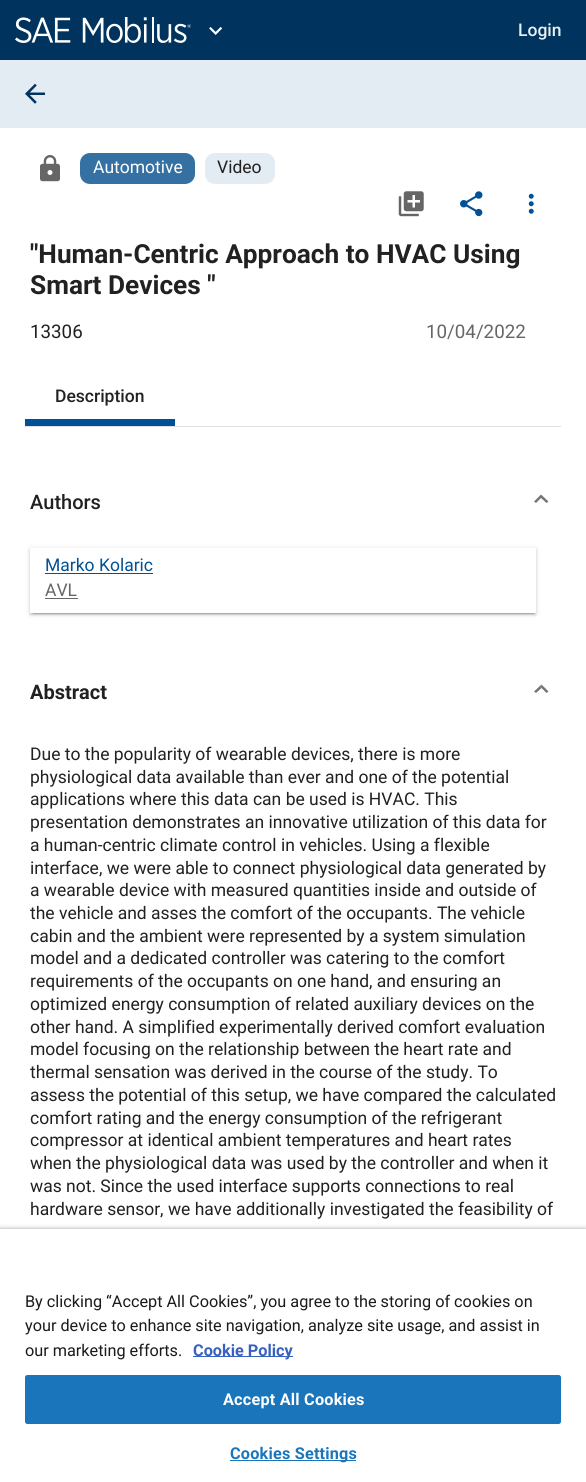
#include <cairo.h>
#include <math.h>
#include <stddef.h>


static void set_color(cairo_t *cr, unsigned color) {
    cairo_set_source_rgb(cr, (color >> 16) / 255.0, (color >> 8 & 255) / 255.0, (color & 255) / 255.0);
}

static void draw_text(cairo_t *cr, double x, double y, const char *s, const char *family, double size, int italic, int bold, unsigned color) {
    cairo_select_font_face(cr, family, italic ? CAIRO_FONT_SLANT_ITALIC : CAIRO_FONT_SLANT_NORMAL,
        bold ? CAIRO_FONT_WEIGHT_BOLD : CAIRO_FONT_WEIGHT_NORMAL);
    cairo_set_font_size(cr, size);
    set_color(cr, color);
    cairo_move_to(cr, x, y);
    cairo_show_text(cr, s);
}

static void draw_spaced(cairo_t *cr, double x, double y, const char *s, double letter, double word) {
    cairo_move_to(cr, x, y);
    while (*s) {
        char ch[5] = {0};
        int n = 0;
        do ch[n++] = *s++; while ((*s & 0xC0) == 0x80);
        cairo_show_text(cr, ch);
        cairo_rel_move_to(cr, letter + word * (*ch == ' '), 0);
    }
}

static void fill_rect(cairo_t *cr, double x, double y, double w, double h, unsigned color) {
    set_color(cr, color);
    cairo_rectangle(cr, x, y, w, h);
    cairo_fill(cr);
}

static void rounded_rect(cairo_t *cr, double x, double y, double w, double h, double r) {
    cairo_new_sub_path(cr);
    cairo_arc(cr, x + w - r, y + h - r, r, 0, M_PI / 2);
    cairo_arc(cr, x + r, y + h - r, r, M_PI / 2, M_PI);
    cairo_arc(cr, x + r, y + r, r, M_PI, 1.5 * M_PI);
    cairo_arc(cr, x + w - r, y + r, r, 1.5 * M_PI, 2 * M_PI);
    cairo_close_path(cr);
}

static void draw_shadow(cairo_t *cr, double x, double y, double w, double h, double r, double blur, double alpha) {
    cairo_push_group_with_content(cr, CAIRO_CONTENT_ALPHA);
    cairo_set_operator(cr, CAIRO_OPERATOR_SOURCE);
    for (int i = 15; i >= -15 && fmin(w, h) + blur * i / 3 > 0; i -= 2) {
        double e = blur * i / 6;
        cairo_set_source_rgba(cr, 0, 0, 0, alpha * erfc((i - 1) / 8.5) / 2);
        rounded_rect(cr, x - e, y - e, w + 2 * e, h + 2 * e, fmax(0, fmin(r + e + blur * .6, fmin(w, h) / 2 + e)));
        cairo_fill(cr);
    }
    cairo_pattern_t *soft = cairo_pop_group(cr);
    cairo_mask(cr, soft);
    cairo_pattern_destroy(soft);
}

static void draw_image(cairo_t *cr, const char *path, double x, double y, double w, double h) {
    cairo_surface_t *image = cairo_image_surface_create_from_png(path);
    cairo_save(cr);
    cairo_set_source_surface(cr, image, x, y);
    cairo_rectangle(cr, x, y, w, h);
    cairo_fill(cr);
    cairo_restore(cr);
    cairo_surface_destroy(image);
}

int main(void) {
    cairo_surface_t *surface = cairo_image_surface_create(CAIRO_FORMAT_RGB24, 586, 1482);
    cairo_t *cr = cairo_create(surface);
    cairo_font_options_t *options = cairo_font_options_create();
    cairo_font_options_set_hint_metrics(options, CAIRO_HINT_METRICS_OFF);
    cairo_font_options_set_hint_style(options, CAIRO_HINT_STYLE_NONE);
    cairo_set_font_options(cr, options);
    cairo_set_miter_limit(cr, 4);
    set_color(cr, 0xFFFFFF);
    cairo_paint(cr);
    fill_rect(cr, 0, 0, 586, 60, 0x00335D);
    draw_image(cr, "assets/img1.png", 15, 17, 176, 26);
    draw_image(cr, "assets/img2.png", 209, 27, 14, 8);
    draw_text(cr, 518, 36, "Login", "Roboto Medium", 17.5, 0, 0, 0xE9F0F6);
    fill_rect(cr, 0, 60, 586, 68, 0xE3EBF3);
    draw_image(cr, "assets/img3.png", 25, 83, 20, 21);
    draw_image(cr, "assets/img4.png", 40, 155, 20, 27);
    set_color(cr, 0x3471A2);
    rounded_rect(cr, 80, 153, 115, 31, 10);
    cairo_fill(cr);
    draw_text(cr, 93, 173, "Automotive", "Roboto", 17.5, 0, 0, 0xFFFFFF);
    set_color(cr, 0xE3EBF3);
    rounded_rect(cr, 205, 153, 70, 31, 10);
    cairo_fill(cr);
    draw_text(cr, 217, 173, "Video", "Roboto", 17.5, 0, 0, 0x212121);
    draw_image(cr, "assets/img5.png", 398, 191, 26, 26);
    draw_image(cr, "assets/img6.png", 460, 191, 23, 26);
    draw_image(cr, "assets/img7.png", 528, 193, 6, 21);
    draw_text(cr, 30, 263, "\"Human-Centric Approach to HVAC Using", "Roboto", 26.25, 0, 1, 0x212121);
    draw_text(cr, 30, 294, "Smart Devices \"", "Roboto", 26.25, 0, 1, 0x212121);
    draw_text(cr, 30, 338, "13306", "Roboto", 18.75, 0, 0, 0x212121);
    draw_text(cr, 426, 338, "10/04/2022", "Roboto", 18.75, 0, 0, 0x666666);
    fill_rect(cr, 25, 426, 536, 1, 0xE0E0E0);
    draw_text(cr, 55, 402, "Description", "Roboto Medium", 17.5, 0, 0, 0x212121);
    fill_rect(cr, 25, 419, 150, 7, 0x005195);
    draw_text(cr, 30, 509, "Authors", "Roboto Medium", 20, 0, 0, 0x212121);
    set_color(cr, 0x757575);
    cairo_new_path(cr);
    cairo_move_to(cr, 534, 501.5);
    cairo_line_to(cr, 541, 494.5);
    cairo_line_to(cr, 541, 498);
    cairo_line_to(cr, 536, 503);
    cairo_close_path(cr);
    cairo_move_to(cr, 541, 494.5);
    cairo_line_to(cr, 548.5, 501.5);
    cairo_line_to(cr, 546.5, 503);
    cairo_line_to(cr, 541, 498);
    cairo_close_path(cr);
    cairo_fill(cr);
    set_color(cr, 0x000000);
    draw_shadow(cr, 30, 549, 506, 65, 0, 3, 0.12);
    draw_shadow(cr, 30, 550, 506, 65, 0, 1, 0.14);
    draw_shadow(cr, 33, 554, 501, 60, 0, 0.5, 0.2);
    fill_rect(cr, 30, 548, 506, 65, 0xFFFFFF);
    draw_text(cr, 45, 571, "Marko Kolaric", "Roboto", 17.5, 0, 0, 0x005195);
    fill_rect(cr, 45, 573, 108, 1, 0x005195);
    draw_text(cr, 45, 596, "AVL", "Roboto", 17.5, 0, 0, 0x666666);
    fill_rect(cr, 45, 598, 33, 1, 0x666666);
    draw_text(cr, 30, 699, "Abstract", "Roboto", 20, 0, 1, 0x212121);
    set_color(cr, 0x757575);
    cairo_new_path(cr);
    cairo_move_to(cr, 534, 691.5);
    cairo_line_to(cr, 541.5, 684.5);
    cairo_line_to(cr, 541.5, 688);
    cairo_line_to(cr, 536, 693);
    cairo_close_path(cr);
    cairo_fill(cr);
    cairo_set_source_rgba(cr, 0, 0, 0, 0.54);
    cairo_new_path(cr);
    cairo_move_to(cr, 541.5, 684.5);
    cairo_line_to(cr, 548.5, 691.5);
    cairo_line_to(cr, 546.5, 693);
    cairo_line_to(cr, 541.5, 688);
    cairo_close_path(cr);
    cairo_fill(cr);
    draw_text(cr, 30, 760, "Due to the popularity of wearable devices, there is more", "Roboto", 17.5, 0, 0, 0x212121);
    draw_text(cr, 30, 783, "physiological data available than ever and one of the potential", "Roboto", 17.5, 0, 0, 0x212121);
    draw_text(cr, 30, 805, "applications where this data can be used is HVAC. This", "Roboto", 17.5, 0, 0, 0x212121);
    draw_text(cr, 30, 828, "presentation demonstrates an innovative utilization of this data for", "Roboto", 17.5, 0, 0, 0x212121);
    draw_text(cr, 30, 851, "a human-centric climate control in vehicles. Using a flexible", "Roboto", 17.5, 0, 0, 0x212121);
    draw_text(cr, 30, 874, "interface, we were able to connect physiological data generated by", "Roboto", 17.5, 0, 0, 0x212121);
    draw_text(cr, 30, 896, "a wearable device with measured quantities inside and outside of", "Roboto", 17.5, 0, 0, 0x212121);
    draw_text(cr, 30, 919, "the vehicle and asses the comfort of the occupants. The vehicle", "Roboto", 17.5, 0, 0, 0x212121);
    draw_text(cr, 30, 942, "cabin and the ambient were represented by a system simulation", "Roboto", 17.5, 0, 0, 0x212121);
    draw_text(cr, 30, 964, "model and a dedicated controller was catering to the comfort", "Roboto", 17.5, 0, 0, 0x212121);
    draw_text(cr, 30, 987, "requirements of the occupants on one hand, and ensuring an", "Roboto", 17.5, 0, 0, 0x212121);
    draw_text(cr, 30, 1010, "optimized energy consumption of related auxiliary devices on the", "Roboto", 17.5, 0, 0, 0x212121);
    draw_text(cr, 30, 1033, "other hand. A simplified experimentally derived comfort evaluation", "Roboto", 17.5, 0, 0, 0x212121);
    draw_text(cr, 30, 1055, "model focusing on the relationship between the heart rate and", "Roboto", 17.5, 0, 0, 0x212121);
    draw_text(cr, 30, 1078, "thermal sensation was derived in the course of the study. To", "Roboto", 17.5, 0, 0, 0x212121);
    draw_text(cr, 30, 1101, "assess the potential of this setup, we have compared the calculated", "Roboto", 17.5, 0, 0, 0x212121);
    draw_text(cr, 30, 1124, "comfort rating and the energy consumption of the refrigerant", "Roboto", 17.5, 0, 0, 0x212121);
    draw_text(cr, 30, 1146, "compressor at identical ambient temperatures and heart rates", "Roboto", 17.5, 0, 0, 0x212121);
    draw_text(cr, 30, 1169, "when the physiological data was used by the controller and when it", "Roboto", 17.5, 0, 0, 0x212121);
    draw_text(cr, 30, 1192, "was not. Since the used interface supports connections to real", "Roboto", 17.5, 0, 0, 0x212121);
    draw_text(cr, 30, 1215, "hardware sensor, we have additionally investigated the feasibility of", "Roboto", 17.5, 0, 0, 0x212121);
    set_color(cr, 0x000000);
    draw_shadow(cr, 0, 1229, 586, 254, 0, 2.5, 0.35);
    fill_rect(cr, 0, 1229, 586, 253, 0xFFFFFF);
    draw_text(cr, 25, 1307, "By clicking “Accept All Cookies”, you agree to the storing of cookies on", "Roboto", 16.25, 0, 0, 0x1A1A1A);
    draw_text(cr, 25, 1331, "your device to enhance site navigation, analyze site usage, and assist in", "Roboto", 16.25, 0, 0, 0x1A1A1A);
    draw_text(cr, 25, 1356, "our marketing efforts.", "Roboto", 16.25, 0, 0, 0x1A1A1A);
    fill_rect(cr, 193, 1356, 100, 1, 0x3860BE);
    draw_text(cr, 193, 1356, "Cookie Policy", "Roboto", 16.25, 0, 1, 0x3860BE);
    set_color(cr, 0x1B75BB);
    rounded_rect(cr, 25.5, 1375.5, 535, 48, 2);
    cairo_fill_preserve(cr);
    cairo_set_line_width(cr, 1);
    cairo_stroke(cr);
    set_color(cr, 0xFFFFFF);
    draw_spaced(cr, 223, 1405, "Accept All Cookies", 0.2, 0);
    fill_rect(cr, 230, 1460, 126, 1, 0x1B75BB);
    draw_spaced(cr, 230, 1459, "Cookies Settings", 0.2, 0);
    cairo_surface_write_to_png(surface, "output.png");
    cairo_font_options_destroy(options);
    cairo_destroy(cr);
    cairo_surface_destroy(surface);
    return 0;
}
